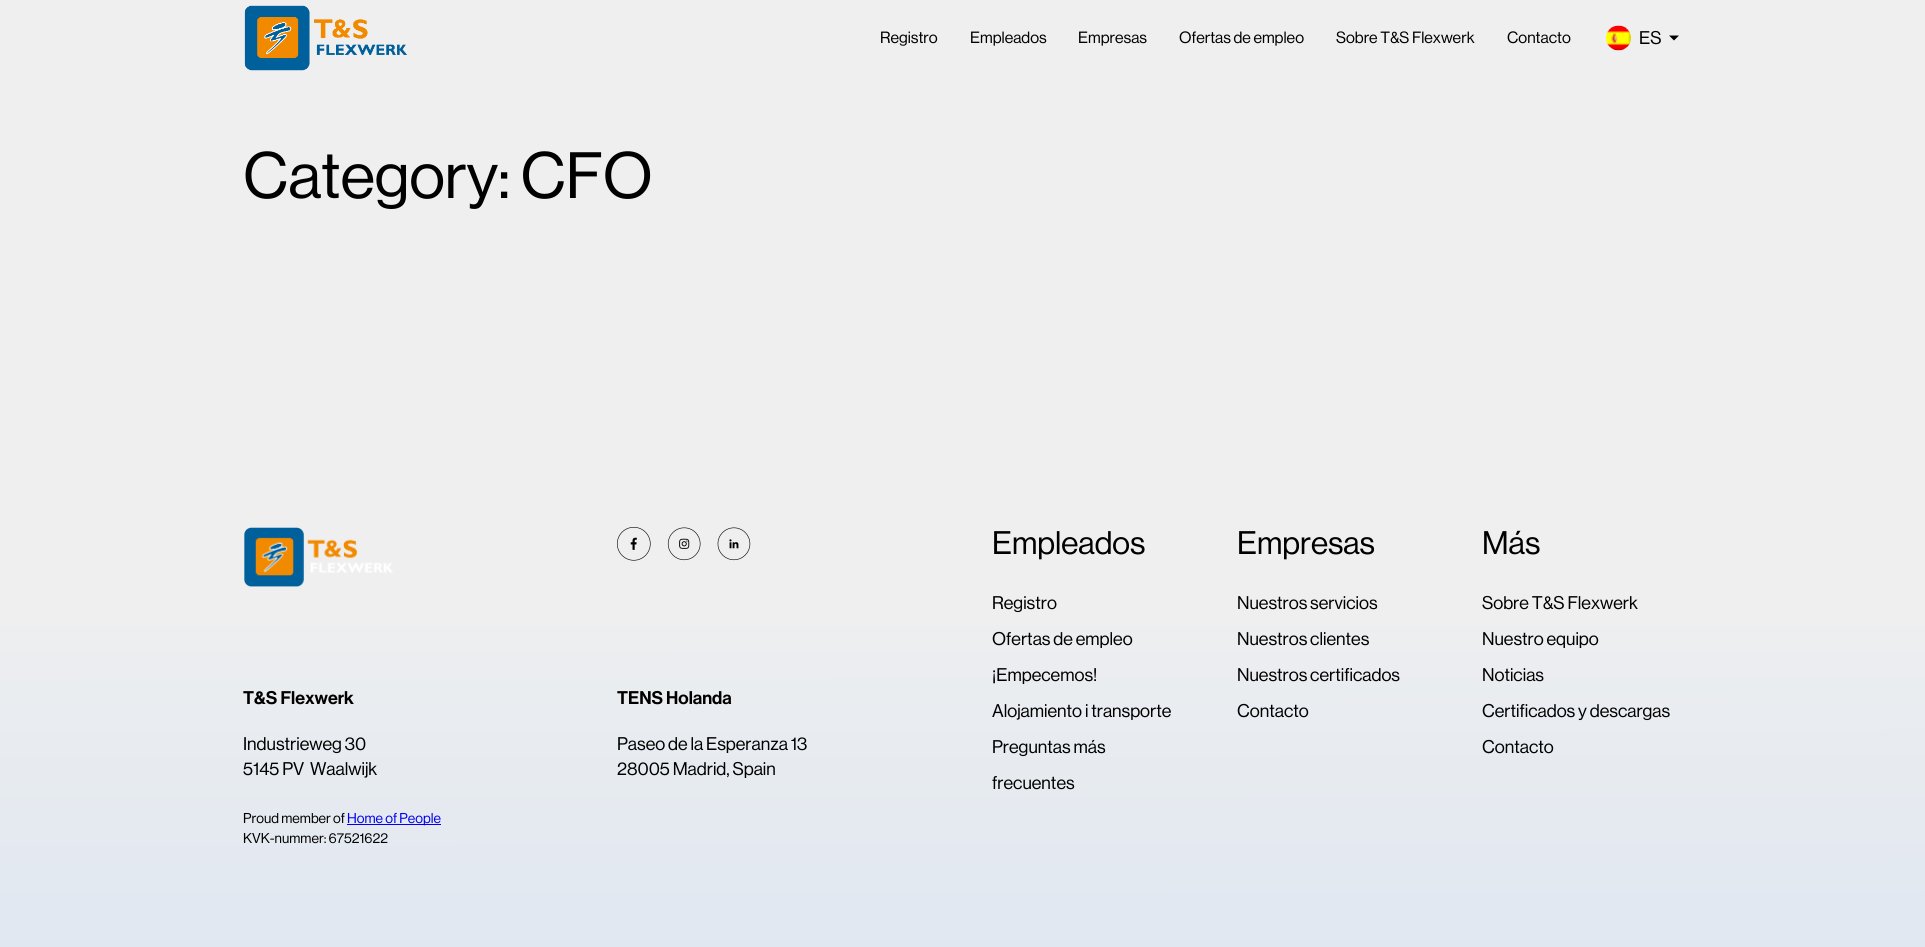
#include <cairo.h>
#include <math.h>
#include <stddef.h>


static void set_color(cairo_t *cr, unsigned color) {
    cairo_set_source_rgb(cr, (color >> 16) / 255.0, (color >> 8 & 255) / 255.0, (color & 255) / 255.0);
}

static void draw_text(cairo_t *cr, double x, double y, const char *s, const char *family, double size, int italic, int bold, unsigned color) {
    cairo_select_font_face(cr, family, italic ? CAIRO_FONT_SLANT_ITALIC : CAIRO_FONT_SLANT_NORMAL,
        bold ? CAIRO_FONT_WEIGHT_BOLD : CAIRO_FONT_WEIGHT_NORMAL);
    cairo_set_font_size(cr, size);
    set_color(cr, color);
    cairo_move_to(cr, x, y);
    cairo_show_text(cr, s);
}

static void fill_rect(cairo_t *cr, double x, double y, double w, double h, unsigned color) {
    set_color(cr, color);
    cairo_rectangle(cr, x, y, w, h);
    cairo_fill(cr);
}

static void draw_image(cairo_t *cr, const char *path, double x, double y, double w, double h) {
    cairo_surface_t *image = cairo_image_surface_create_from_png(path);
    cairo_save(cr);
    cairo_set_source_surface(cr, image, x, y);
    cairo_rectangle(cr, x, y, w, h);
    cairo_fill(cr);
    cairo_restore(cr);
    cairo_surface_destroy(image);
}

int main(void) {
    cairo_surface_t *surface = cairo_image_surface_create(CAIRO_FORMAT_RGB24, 1925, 947);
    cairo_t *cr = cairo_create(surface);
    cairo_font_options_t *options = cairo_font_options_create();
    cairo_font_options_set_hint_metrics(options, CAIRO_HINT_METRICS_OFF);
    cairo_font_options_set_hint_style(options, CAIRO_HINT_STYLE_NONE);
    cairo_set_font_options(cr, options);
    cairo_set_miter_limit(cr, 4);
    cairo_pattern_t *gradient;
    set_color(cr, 0xEFEFEF);
    cairo_paint(cr);
    draw_image(cr, "assets/img1.png", 244, 5, 163, 66);
    draw_text(cr, 880, 43, "Registro", "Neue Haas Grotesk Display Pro", 16, 0, 0, 0x000000);
    draw_text(cr, 970, 43, "Empleados", "Neue Haas Grotesk Display Pro", 16, 0, 0, 0x000000);
    draw_text(cr, 1078, 43, "Empresas", "Neue Haas Grotesk Display Pro", 16, 0, 0, 0x000000);
    draw_text(cr, 1179, 43, "Ofertas de empleo", "Neue Haas Grotesk Display Pro", 16, 0, 0, 0x000000);
    draw_text(cr, 1336, 43, "Sobre T&S Flexwerk", "Neue Haas Grotesk Display Pro", 16, 0, 0, 0x000000);
    draw_text(cr, 1507, 43, "Contacto", "Neue Haas Grotesk Display Pro", 16, 0, 0, 0x000000);
    draw_image(cr, "assets/img2.png", 1606, 25, 25, 26);
    draw_text(cr, 1639, 44, "ES", "Neue Haas Grotesk Display Pro", 18, 0, 0, 0x000000);
    cairo_new_path(cr);
    cairo_move_to(cr, 1669, 35.5);
    cairo_line_to(cr, 1679, 35.5);
    cairo_line_to(cr, 1674, 40.5);
    cairo_close_path(cr);
    cairo_fill(cr);
    draw_text(cr, 243, 198, "Category: CFO", "Neue Haas Grotesk Display Pro", 64, 0, 0, 0x000000);
    gradient = cairo_pattern_create_linear(963, 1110, 962, 354);
    cairo_pattern_add_color_stop_rgba(gradient, 0, 0.855, 0.894, 0.945, 1);
    cairo_pattern_add_color_stop_rgba(gradient, 0.76, 0.941, 0.941, 0.941, 1);
    cairo_set_source(cr, gradient);
    cairo_pattern_destroy(gradient);
    cairo_rectangle(cr, 0, 626, 1925, 321);
    cairo_fill(cr);
    draw_text(cr, 992, 554, "Empleados", "Neue Haas Grotesk Display Pro", 32, 0, 0, 0x000000);
    draw_text(cr, 992, 609, "Registro", "Neue Haas Grotesk Display Pro", 18, 0, 0, 0x000000);
    draw_text(cr, 992, 645, "Ofertas de empleo", "Neue Haas Grotesk Display Pro", 18, 0, 0, 0x000000);
    draw_text(cr, 992, 681, "¡Empecemos!", "Neue Haas Grotesk Display Pro", 18, 0, 0, 0x000000);
    draw_text(cr, 992, 717, "Alojamiento i transporte", "Neue Haas Grotesk Display Pro", 18, 0, 0, 0x000000);
    draw_text(cr, 992, 753, "Preguntas más", "Neue Haas Grotesk Display Pro", 18, 0, 0, 0x000000);
    draw_text(cr, 992, 789, "frecuentes", "Neue Haas Grotesk Display Pro", 18, 0, 0, 0x000000);
    draw_text(cr, 1237, 554, "Empresas", "Neue Haas Grotesk Display Pro", 32, 0, 0, 0x000000);
    draw_text(cr, 1237, 609, "Nuestros servicios", "Neue Haas Grotesk Display Pro", 18, 0, 0, 0x000000);
    draw_text(cr, 1237, 645, "Nuestros clientes", "Neue Haas Grotesk Display Pro", 18, 0, 0, 0x000000);
    draw_text(cr, 1237, 681, "Nuestros certificados", "Neue Haas Grotesk Display Pro", 18, 0, 0, 0x000000);
    draw_text(cr, 1237, 717, "Contacto", "Neue Haas Grotesk Display Pro", 18, 0, 0, 0x000000);
    draw_text(cr, 1482, 554, "Más", "Neue Haas Grotesk Display Pro", 32, 0, 0, 0x000000);
    draw_text(cr, 1482, 609, "Sobre T&S Flexwerk", "Neue Haas Grotesk Display Pro", 18, 0, 0, 0x000000);
    draw_text(cr, 1482, 645, "Nuestro equipo", "Neue Haas Grotesk Display Pro", 18, 0, 0, 0x000000);
    draw_text(cr, 1482, 681, "Noticias", "Neue Haas Grotesk Display Pro", 18, 0, 0, 0x000000);
    draw_text(cr, 1482, 717, "Certificados y descargas", "Neue Haas Grotesk Display Pro", 18, 0, 0, 0x000000);
    draw_text(cr, 1482, 753, "Contacto", "Neue Haas Grotesk Display Pro", 18, 0, 0, 0x000000);
    draw_image(cr, "assets/img3.png", 244, 527, 149, 60);
    draw_image(cr, "assets/img4.png", 617, 527, 34, 34);
    draw_image(cr, "assets/img5.png", 667, 527, 34, 34);
    draw_image(cr, "assets/img6.png", 717, 527, 34, 34);
    draw_text(cr, 243, 704, "T&S Flexwerk", "Neue Haas Grotesk Display Pro SemiBold", 18, 0, 0, 0x000000);
    draw_text(cr, 243, 750, "Industrieweg 30", "Neue Haas Grotesk Display Pro", 18, 0, 0, 0x000000);
    draw_text(cr, 243, 775, "5145 PV  Waalwijk", "Neue Haas Grotesk Display Pro", 18, 0, 0, 0x000000);
    draw_text(cr, 617, 704, "TENS Holanda", "Neue Haas Grotesk Display Pro SemiBold", 18, 0, 0, 0x000000);
    draw_text(cr, 617, 750, "Paseo de la Esperanza 13", "Neue Haas Grotesk Display Pro", 18, 0, 0, 0x000000);
    draw_text(cr, 617, 775, "28005 Madrid, Spain", "Neue Haas Grotesk Display Pro", 18, 0, 0, 0x000000);
    draw_text(cr, 243, 823, "Proud member of", "Neue Haas Grotesk Display Pro", 14, 0, 0, 0x000000);
    fill_rect(cr, 347, 824, 94, 1, 0x0000EE);
    draw_text(cr, 347, 823, "Home of People", "Neue Haas Grotesk Display Pro", 14, 0, 0, 0x0000EE);
    draw_text(cr, 243, 843, "KVK-nummer: 67521622", "Neue Haas Grotesk Display Pro", 14, 0, 0, 0x000000);
    cairo_surface_write_to_png(surface, "output.png");
    cairo_font_options_destroy(options);
    cairo_destroy(cr);
    cairo_surface_destroy(surface);
    return 0;
}
